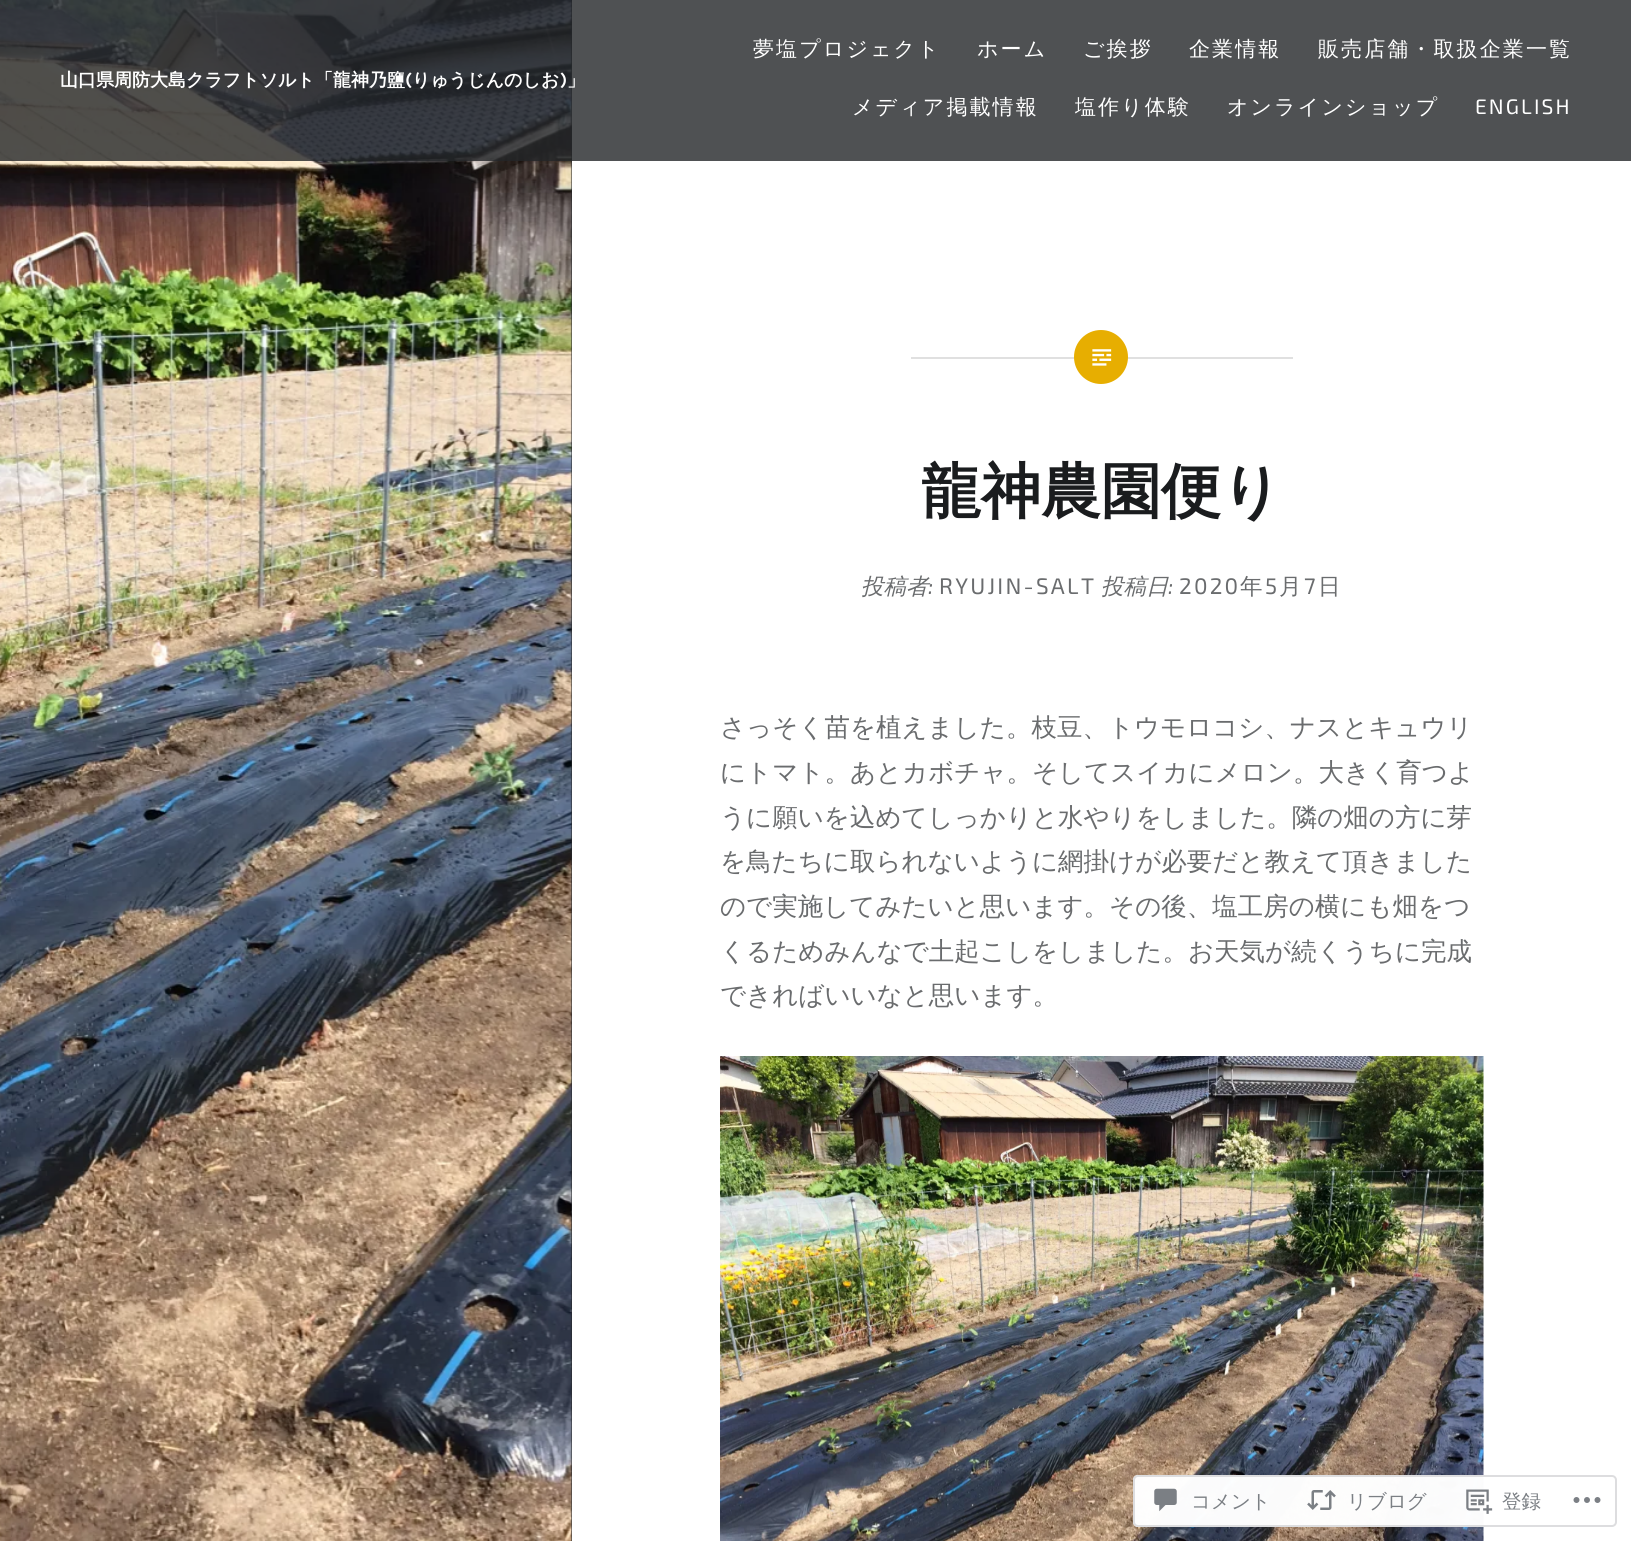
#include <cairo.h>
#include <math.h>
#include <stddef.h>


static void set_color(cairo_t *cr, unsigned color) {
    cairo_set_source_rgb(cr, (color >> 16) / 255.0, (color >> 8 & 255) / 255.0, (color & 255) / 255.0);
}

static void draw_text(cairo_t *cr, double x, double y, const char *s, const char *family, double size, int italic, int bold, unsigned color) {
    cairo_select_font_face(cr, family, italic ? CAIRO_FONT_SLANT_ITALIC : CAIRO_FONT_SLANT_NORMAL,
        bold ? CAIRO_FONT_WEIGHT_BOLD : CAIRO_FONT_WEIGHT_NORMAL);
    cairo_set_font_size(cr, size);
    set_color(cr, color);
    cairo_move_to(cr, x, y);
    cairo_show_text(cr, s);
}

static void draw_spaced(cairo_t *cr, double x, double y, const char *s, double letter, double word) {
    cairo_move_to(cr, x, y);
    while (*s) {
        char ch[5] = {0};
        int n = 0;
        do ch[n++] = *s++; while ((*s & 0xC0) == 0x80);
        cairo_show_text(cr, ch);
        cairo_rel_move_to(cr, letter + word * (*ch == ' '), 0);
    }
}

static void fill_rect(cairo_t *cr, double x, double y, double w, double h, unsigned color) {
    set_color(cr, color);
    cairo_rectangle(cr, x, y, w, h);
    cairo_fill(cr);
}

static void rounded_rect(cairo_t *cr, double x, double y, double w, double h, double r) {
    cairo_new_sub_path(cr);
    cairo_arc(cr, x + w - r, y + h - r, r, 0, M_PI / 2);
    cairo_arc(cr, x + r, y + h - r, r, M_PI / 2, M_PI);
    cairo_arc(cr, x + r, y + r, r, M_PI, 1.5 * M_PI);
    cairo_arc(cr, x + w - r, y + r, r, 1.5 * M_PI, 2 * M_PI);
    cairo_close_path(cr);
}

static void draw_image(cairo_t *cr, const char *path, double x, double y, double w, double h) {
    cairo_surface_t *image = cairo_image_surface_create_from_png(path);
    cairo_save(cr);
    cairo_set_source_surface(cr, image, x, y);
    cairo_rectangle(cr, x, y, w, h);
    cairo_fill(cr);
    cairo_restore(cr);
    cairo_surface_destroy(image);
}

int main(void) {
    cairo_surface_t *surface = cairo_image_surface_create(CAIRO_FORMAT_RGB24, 1631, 1541);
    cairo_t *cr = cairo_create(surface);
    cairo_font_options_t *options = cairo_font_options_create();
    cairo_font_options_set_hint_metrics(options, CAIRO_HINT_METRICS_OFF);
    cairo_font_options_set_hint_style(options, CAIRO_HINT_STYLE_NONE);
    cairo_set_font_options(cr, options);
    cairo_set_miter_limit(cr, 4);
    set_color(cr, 0x242629);
    cairo_paint(cr);
    fill_rect(cr, 572, 0, 1059, 1541, 0xFFFFFF);
    draw_image(cr, "assets/img1.png", 0, 0, 572, 1541);
    cairo_set_source_rgba(cr, 0.141, 0.149, 0.161, 0.8);
    cairo_rectangle(cr, 0, 0, 1631, 161);
    cairo_fill(cr);
    draw_text(cr, 60, 86, "山口県周防大島クラフトソルト「龍神乃鹽", "WenQuanYi Zen Hei", 18, 0, 1, 0xFFFFFF);
    draw_text(cr, 405, 86, "(", "Karla", 18, 0, 1, 0xFFFFFF);
    draw_text(cr, 412, 86, "りゅうじんのしお", "WenQuanYi Zen Hei", 18, 0, 1, 0xFFFFFF);
    draw_text(cr, 560, 86, ")", "Karla", 18, 0, 1, 0xFFFFFF);
    draw_text(cr, 567, 86, "」", "WenQuanYi Zen Hei", 18, 0, 1, 0xFFFFFF);
    cairo_select_font_face(cr, "WenQuanYi Zen Hei Medium", CAIRO_FONT_SLANT_NORMAL, CAIRO_FONT_WEIGHT_NORMAL);
    cairo_set_font_size(cr, 21);
    draw_spaced(cr, 753, 56, "夢塩プロジェクト", 2.1, 0);
    draw_spaced(cr, 977, 56, "ホーム", 2.1, 0);
    draw_spaced(cr, 1083, 56, "ご挨拶", 2.1, 0);
    draw_spaced(cr, 1189, 56, "企業情報", 2.1, 0);
    draw_spaced(cr, 1318, 56, "販売店舗・取扱企業一覧", 2.1, 0);
    draw_spaced(cr, 852, 114, "メディア掲載情報", 2.1, 0);
    draw_spaced(cr, 1075, 114, "塩作り体験", 2.1, 0);
    draw_spaced(cr, 1227, 114, "オンラインショップ", 2.1, 0);
    cairo_select_font_face(cr, "Exo 2", CAIRO_FONT_SLANT_NORMAL, CAIRO_FONT_WEIGHT_NORMAL);
    draw_spaced(cr, 1475, 114, "ENGLISH", 2.1, 0);
    fill_rect(cr, 911, 357, 382, 2, 0xE0E0E0);
    set_color(cr, 0xE7AE01);
    cairo_new_path(cr);
    cairo_arc(cr, 1101, 357, 27, 0, 2 * M_PI);
    cairo_fill(cr);
    draw_image(cr, "assets/img2.png", 1092, 349, 20, 17);
    draw_text(cr, 921, 512, "龍神農園便り", "WenQuanYi Zen Hei", 60, 0, 1, 0x1A1C1E);
    draw_text(cr, 861, 594, "投稿者", "WenQuanYi Zen Hei Medium", 22.5, 1, 0, 0x6A6C6E);
    cairo_select_font_face(cr, "Exo 2", CAIRO_FONT_SLANT_NORMAL, CAIRO_FONT_WEIGHT_NORMAL);
    draw_spaced(cr, 939, 594, "RYUJIN-SALT", 2.25, 0);
    draw_text(cr, 1101, 594, "投稿日", "WenQuanYi Zen Hei Medium", 22.5, 1, 0, 0x6A6C6E);
    cairo_select_font_face(cr, "Exo 2", CAIRO_FONT_SLANT_NORMAL, CAIRO_FONT_WEIGHT_NORMAL);
    draw_spaced(cr, 1179, 594, "2020", 2.25, 0);
    cairo_select_font_face(cr, "WenQuanYi Zen Hei Medium", CAIRO_FONT_SLANT_NORMAL, CAIRO_FONT_WEIGHT_NORMAL);
    draw_spaced(cr, 1240, 594, "年", 2.25, 0);
    cairo_select_font_face(cr, "Exo 2", CAIRO_FONT_SLANT_NORMAL, CAIRO_FONT_WEIGHT_NORMAL);
    draw_spaced(cr, 1265, 594, "5", 2.25, 0);
    cairo_select_font_face(cr, "WenQuanYi Zen Hei Medium", CAIRO_FONT_SLANT_NORMAL, CAIRO_FONT_WEIGHT_NORMAL);
    draw_spaced(cr, 1279, 594, "月", 2.25, 0);
    cairo_select_font_face(cr, "Exo 2", CAIRO_FONT_SLANT_NORMAL, CAIRO_FONT_WEIGHT_NORMAL);
    draw_spaced(cr, 1304, 594, "7", 2.25, 0);
    cairo_select_font_face(cr, "WenQuanYi Zen Hei Medium", CAIRO_FONT_SLANT_NORMAL, CAIRO_FONT_WEIGHT_NORMAL);
    draw_spaced(cr, 1318, 594, "日", 2.25, 0);
    draw_text(cr, 928, 594, ":", "Exo 2", 22.5, 1, 0, 0x6A6C6E);
    draw_text(cr, 1168, 594, ":", "Exo 2", 22.5, 1, 0, 0x6A6C6E);
    draw_text(cr, 720, 736, "さっそく苗を植えました。枝豆、トウモロコシ、ナスとキュウリ", "WenQuanYi Zen Hei Medium", 25.5, 0, 0, 0x6A6C6E);
    draw_text(cr, 720, 781, "にトマト。あとカボチャ。そしてスイカにメロン。大きく育つよ", "WenQuanYi Zen Hei Medium", 25.5, 0, 0, 0x6A6C6E);
    draw_text(cr, 720, 826, "うに願いを込めてしっかりと水やりをしました。隣の畑の方に芽", "WenQuanYi Zen Hei Medium", 25.5, 0, 0, 0x6A6C6E);
    draw_text(cr, 720, 870, "を鳥たちに取られないように網掛けが必要だと教えて頂きました", "WenQuanYi Zen Hei Medium", 25.5, 0, 0, 0x6A6C6E);
    draw_text(cr, 720, 915, "ので実施してみたいと思います。その後、塩工房の横にも畑をつ", "WenQuanYi Zen Hei Medium", 25.5, 0, 0, 0x6A6C6E);
    draw_text(cr, 720, 960, "くるためみんなで土起こしをしました。お天気が続くうちに完成", "WenQuanYi Zen Hei Medium", 25.5, 0, 0, 0x6A6C6E);
    draw_text(cr, 720, 1004, "できればいいなと思います。", "WenQuanYi Zen Hei Medium", 25.5, 0, 0, 0x6A6C6E);
    draw_image(cr, "assets/img3.png", 720, 1056, 764, 485);
    cairo_set_source_rgba(cr, 1, 1, 1, 0.98);
    rounded_rect(cr, 1133, 1475, 484, 52, 5);
    cairo_fill(cr);
    rounded_rect(cr, 1134, 1476, 482, 50, 4);
    cairo_set_source_rgba(cr, 0.863, 0.863, 0.871, 0.98);
    cairo_stroke(cr);
    draw_image(cr, "assets/img4.png", 1154, 1488, 23, 24);
    draw_text(cr, 1191, 1508, "コメント", "WenQuanYi Zen Hei Medium", 19.5, 0, 0, 0x7B7F84);
    draw_image(cr, "assets/img5.png", 1307, 1490, 29, 20);
    draw_text(cr, 1347, 1508, "リブログ", "WenQuanYi Zen Hei Medium", 19.5, 0, 0, 0x7B7F84);
    draw_image(cr, "assets/img6.png", 1466, 1489, 27, 25);
    draw_text(cr, 1502, 1508, "登録", "WenQuanYi Zen Hei Medium", 19.5, 0, 0, 0x7B7F84);
    draw_image(cr, "assets/img7.png", 1573, 1497, 28, 6);
    cairo_surface_write_to_png(surface, "output.png");
    cairo_font_options_destroy(options);
    cairo_destroy(cr);
    cairo_surface_destroy(surface);
    return 0;
}
